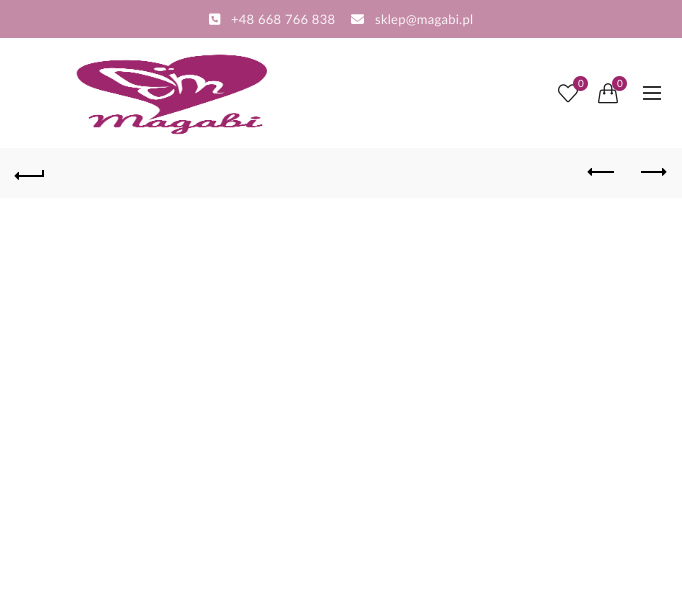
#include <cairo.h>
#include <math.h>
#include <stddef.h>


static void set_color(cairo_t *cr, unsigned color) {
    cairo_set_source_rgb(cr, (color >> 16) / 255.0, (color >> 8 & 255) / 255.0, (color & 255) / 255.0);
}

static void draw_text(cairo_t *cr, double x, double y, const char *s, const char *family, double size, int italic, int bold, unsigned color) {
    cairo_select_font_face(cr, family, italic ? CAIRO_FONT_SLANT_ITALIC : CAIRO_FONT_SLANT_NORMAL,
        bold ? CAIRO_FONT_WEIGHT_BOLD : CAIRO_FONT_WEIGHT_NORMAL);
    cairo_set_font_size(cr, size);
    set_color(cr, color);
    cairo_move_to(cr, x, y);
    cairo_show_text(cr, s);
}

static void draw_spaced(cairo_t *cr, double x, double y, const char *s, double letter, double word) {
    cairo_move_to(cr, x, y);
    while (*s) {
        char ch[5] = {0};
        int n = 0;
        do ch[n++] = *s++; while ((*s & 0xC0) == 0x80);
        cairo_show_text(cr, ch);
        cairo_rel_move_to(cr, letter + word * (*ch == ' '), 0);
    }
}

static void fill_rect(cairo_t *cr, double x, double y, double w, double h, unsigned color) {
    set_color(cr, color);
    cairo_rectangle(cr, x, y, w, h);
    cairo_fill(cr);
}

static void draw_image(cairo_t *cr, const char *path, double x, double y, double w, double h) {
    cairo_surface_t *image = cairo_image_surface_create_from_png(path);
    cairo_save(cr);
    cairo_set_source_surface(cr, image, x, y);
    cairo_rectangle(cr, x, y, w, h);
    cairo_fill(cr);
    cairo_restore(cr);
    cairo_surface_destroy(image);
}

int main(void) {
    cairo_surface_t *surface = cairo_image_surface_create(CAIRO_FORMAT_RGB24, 682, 610);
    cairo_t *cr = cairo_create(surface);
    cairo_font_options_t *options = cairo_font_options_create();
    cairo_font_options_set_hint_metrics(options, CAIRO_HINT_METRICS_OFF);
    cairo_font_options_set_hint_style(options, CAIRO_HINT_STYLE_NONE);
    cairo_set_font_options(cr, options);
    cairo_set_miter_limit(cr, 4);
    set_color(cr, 0xFFFFFF);
    cairo_paint(cr);
    fill_rect(cr, 0, 0, 682, 38, 0xC48BA6);
    draw_image(cr, "assets/img1.png", 209, 13, 12, 12);
    cairo_select_font_face(cr, "Lato", CAIRO_FONT_SLANT_NORMAL, CAIRO_FONT_WEIGHT_NORMAL);
    cairo_set_font_size(cr, 13);
    set_color(cr, 0xF9F3F6);
    draw_spaced(cr, 231, 24, "+48 668 766 838", 0.25, 0);
    draw_image(cr, "assets/img2.png", 351, 14, 13, 10);
    draw_spaced(cr, 375, 24, "sklep@magabi.pl", 0.25, 0);
    draw_image(cr, "assets/img3.png", 76, 54, 192, 81);
    draw_image(cr, "assets/img4.png", 558, 84, 20, 19);
    set_color(cr, 0x9E256B);
    cairo_arc(cr, 580.5, 83.5, 7.5, 0, 2 * M_PI);
    cairo_fill(cr);
    draw_text(cr, 578, 87, "0", "Lato", 10, 0, 0, 0xFFFFFF);
    draw_image(cr, "assets/img5.png", 598, 83, 20, 21);
    set_color(cr, 0x9E256B);
    cairo_arc(cr, 619.5, 83.5, 7.5, 0, 2 * M_PI);
    cairo_fill(cr);
    draw_text(cr, 617, 87, "0", "Lato", 10, 0, 0, 0xFFFFFF);
    fill_rect(cr, 643, 92, 18, 2, 0x333333);
    fill_rect(cr, 643, 86, 18, 2, 0x333333);
    fill_rect(cr, 643, 98, 18, 2, 0x333333);
    fill_rect(cr, 0, 148, 682, 50, 0xF9F9F9);
    fill_rect(cr, 18, 175, 25, 2, 0x000000);
    draw_image(cr, "assets/img6.png", 14, 171, 5, 9);
    fill_rect(cr, 42, 170, 2, 7, 0x000000);
    fill_rect(cr, 591, 171, 23, 2, 0x000000);
    draw_image(cr, "assets/img6.png", 587, 167, 5, 9);
    fill_rect(cr, 641, 171, 23, 2, 0x000000);
    draw_image(cr, "assets/img7.png", 662, 167, 5, 9);
    cairo_surface_write_to_png(surface, "output.png");
    cairo_font_options_destroy(options);
    cairo_destroy(cr);
    cairo_surface_destroy(surface);
    return 0;
}
